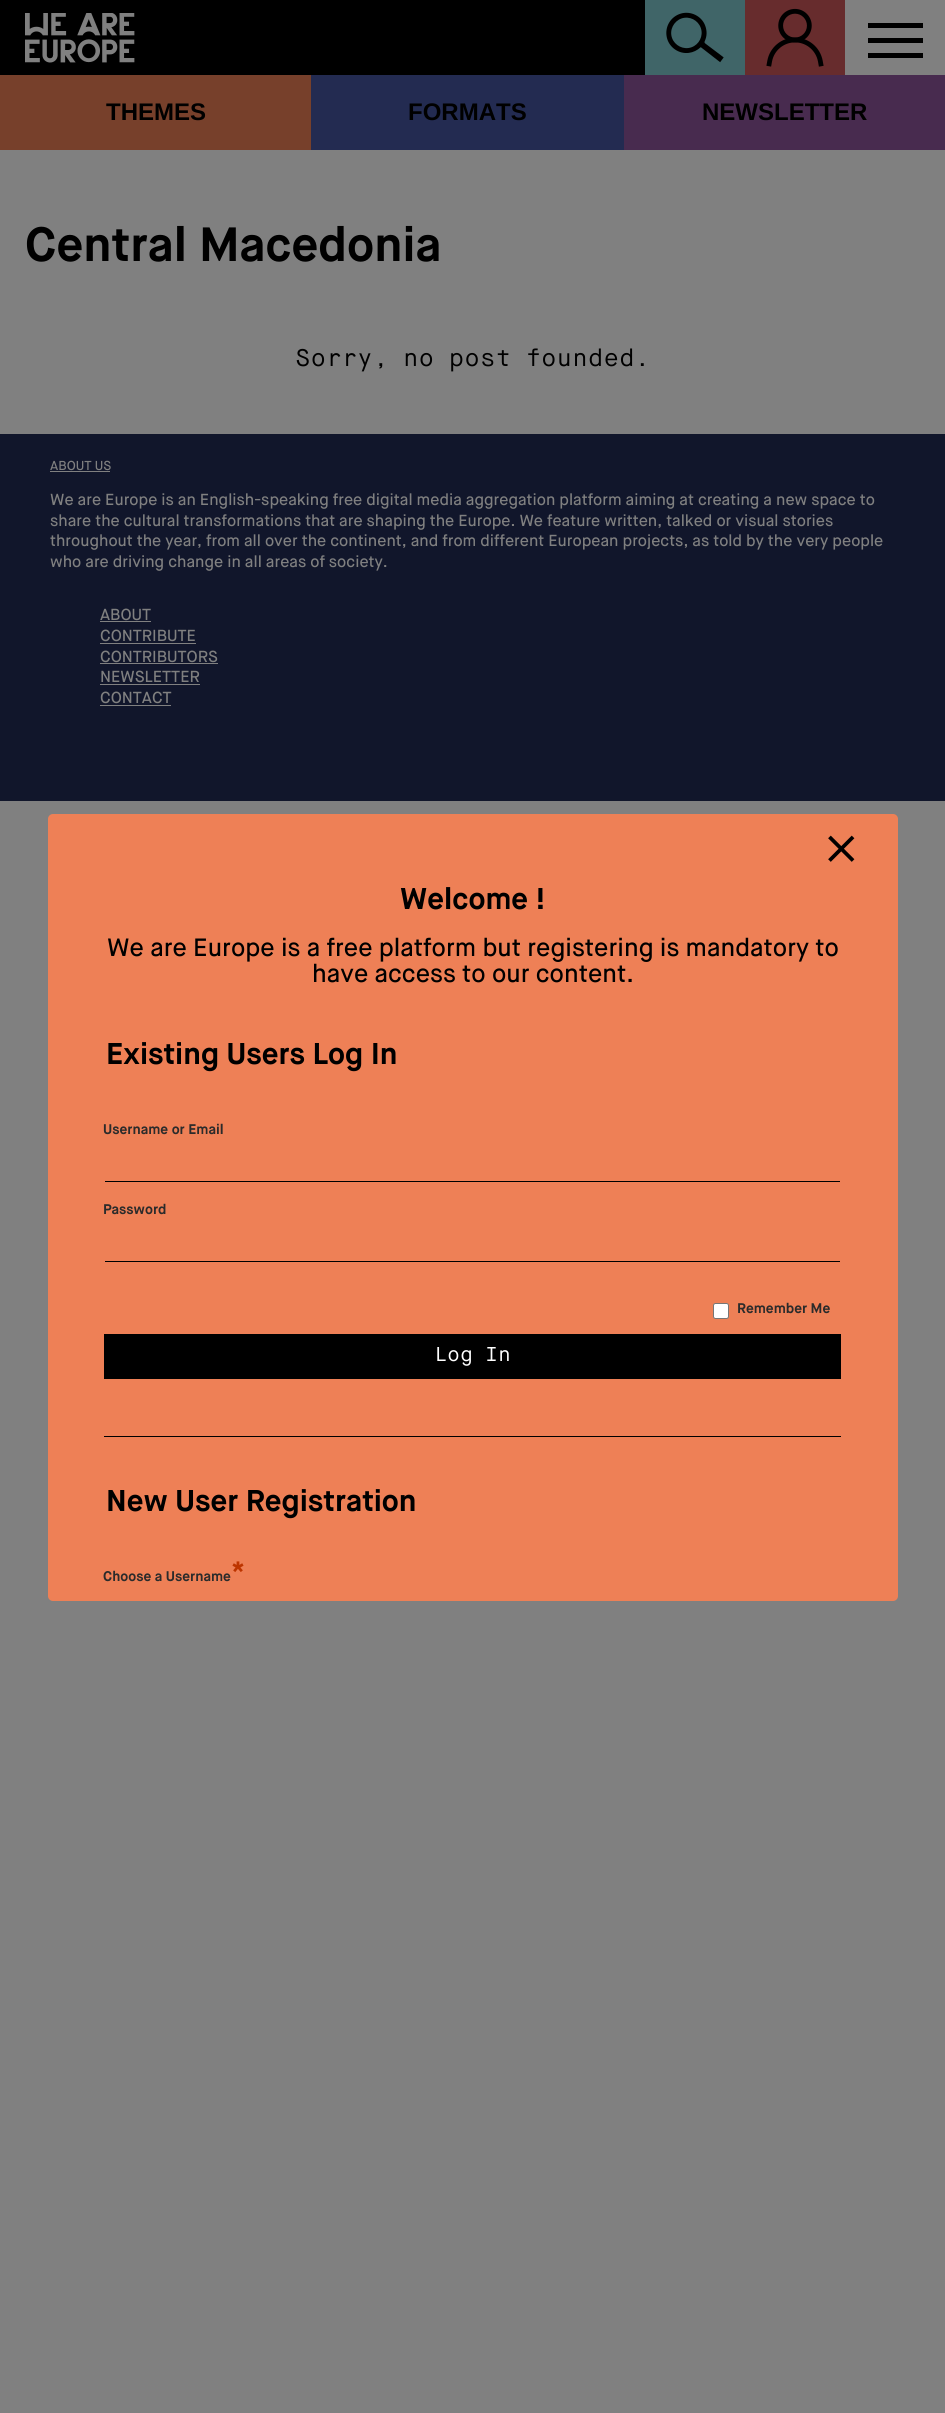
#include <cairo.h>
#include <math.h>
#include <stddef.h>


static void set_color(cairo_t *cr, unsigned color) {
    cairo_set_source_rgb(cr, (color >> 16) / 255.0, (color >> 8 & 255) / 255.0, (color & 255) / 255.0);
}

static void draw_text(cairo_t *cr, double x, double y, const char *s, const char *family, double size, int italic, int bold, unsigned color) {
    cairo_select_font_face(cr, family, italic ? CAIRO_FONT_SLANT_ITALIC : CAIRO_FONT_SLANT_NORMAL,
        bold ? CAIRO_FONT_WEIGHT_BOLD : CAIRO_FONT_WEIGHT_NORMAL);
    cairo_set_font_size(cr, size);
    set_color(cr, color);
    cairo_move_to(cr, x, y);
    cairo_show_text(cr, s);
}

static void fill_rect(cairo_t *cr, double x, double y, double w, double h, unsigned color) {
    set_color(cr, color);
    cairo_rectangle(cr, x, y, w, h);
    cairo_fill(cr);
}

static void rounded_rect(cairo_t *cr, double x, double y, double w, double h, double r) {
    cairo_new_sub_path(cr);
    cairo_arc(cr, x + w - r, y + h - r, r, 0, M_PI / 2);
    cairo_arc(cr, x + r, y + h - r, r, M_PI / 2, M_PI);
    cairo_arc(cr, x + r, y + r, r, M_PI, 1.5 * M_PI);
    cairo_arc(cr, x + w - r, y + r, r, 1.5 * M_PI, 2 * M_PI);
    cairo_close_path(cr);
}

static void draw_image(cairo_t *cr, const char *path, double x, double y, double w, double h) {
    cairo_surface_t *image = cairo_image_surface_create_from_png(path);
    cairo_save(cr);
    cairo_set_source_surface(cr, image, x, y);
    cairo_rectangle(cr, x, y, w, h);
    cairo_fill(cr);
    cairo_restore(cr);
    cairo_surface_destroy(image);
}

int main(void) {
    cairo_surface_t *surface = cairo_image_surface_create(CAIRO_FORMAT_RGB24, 945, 2413);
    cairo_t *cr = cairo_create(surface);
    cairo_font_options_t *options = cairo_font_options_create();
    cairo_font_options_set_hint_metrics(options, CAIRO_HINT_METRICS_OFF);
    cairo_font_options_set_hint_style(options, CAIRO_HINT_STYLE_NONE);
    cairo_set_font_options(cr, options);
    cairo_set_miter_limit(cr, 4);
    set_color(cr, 0x808080);
    cairo_paint(cr);
    fill_rect(cr, 0, 0, 645, 75, 0x000000);
    draw_image(cr, "assets/img1.png", 25, 13, 110, 50);
    fill_rect(cr, 645, 0, 100, 75, 0x406568);
    draw_image(cr, "assets/img2.png", 666, 12, 58, 51);
    fill_rect(cr, 745, 0, 100, 75, 0x672C2D);
    draw_image(cr, "assets/img3.png", 766, 8, 58, 59);
    fill_rect(cr, 868, 23, 55, 5, 0x000000);
    fill_rect(cr, 868, 38, 55, 5, 0x000000);
    fill_rect(cr, 868, 53, 55, 5, 0x000000);
    fill_rect(cr, 0, 75, 311, 75, 0x77402B);
    draw_text(cr, 106, 120, "THEMES", "Liberation Sans", 24, 0, 1, 0x000000);
    fill_rect(cr, 311, 75, 313, 75, 0x232B51);
    draw_text(cr, 408, 120, "FORMATS", "Liberation Sans", 24, 0, 1, 0x000000);
    fill_rect(cr, 624, 75, 321, 75, 0x482B4F);
    draw_text(cr, 702, 120, "NEWSLETTER", "Liberation Sans", 24, 0, 1, 0x000000);
    draw_text(cr, 25, 261, "Central Macedonia", "Maison Neue", 48, 0, 1, 0x000000);
    draw_text(cr, 295, 366, "Sorry, no post founded.", "Maison Neue", 24, 0, 0, 0x000000);
    fill_rect(cr, 0, 434, 945, 367, 0x11162B);
    draw_text(cr, 50, 470, "ABOUT US", "Maison Neue Medium", 13, 0, 0, 0x808080);
    fill_rect(cr, 50, 471, 60, 1, 0x808080);
    draw_text(cr, 50, 505, "We are Europe is an English-speaking free digital media aggregation platform aiming at creating a new space to", "Maison Neue Medium", 16, 0, 0, 0x808080);
    draw_text(cr, 50, 526, "share the cultural transformations that are shaping the Europe. We feature written, talked or visual stories", "Maison Neue Medium", 16, 0, 0, 0x808080);
    draw_text(cr, 50, 546, "throughout the year, from all over the continent, and from different European projects, as told by the very people", "Maison Neue Medium", 16, 0, 0, 0x808080);
    draw_text(cr, 50, 567, "who are driving change in all areas of society.", "Maison Neue Medium", 16, 0, 0, 0x808080);
    draw_text(cr, 100, 620, "ABOUT", "Maison Neue Medium", 16, 0, 0, 0x808080);
    fill_rect(cr, 100, 621, 51, 1, 0x808080);
    draw_text(cr, 100, 641, "CONTRIBUTE", "Maison Neue Medium", 16, 0, 0, 0x808080);
    fill_rect(cr, 100, 643, 96, 1, 0x808080);
    draw_text(cr, 100, 662, "CONTRIBUTORS", "Maison Neue Medium", 16, 0, 0, 0x808080);
    fill_rect(cr, 100, 663, 118, 1, 0x808080);
    draw_text(cr, 100, 682, "NEWSLETTER", "Maison Neue Medium", 16, 0, 0, 0x808080);
    fill_rect(cr, 100, 684, 100, 1, 0x808080);
    draw_text(cr, 100, 703, "CONTACT", "Maison Neue Medium", 16, 0, 0, 0x808080);
    fill_rect(cr, 100, 705, 71, 1, 0x808080);
    set_color(cr, 0xEE8056);
    rounded_rect(cr, 48, 814, 850, 787, 5);
    cairo_fill(cr);
    draw_image(cr, "assets/img4.png", 828, 835, 27, 27);
    draw_text(cr, 400, 909, "Welcome !", "Maison Neue", 30, 0, 1, 0x000000);
    draw_text(cr, 107, 956, "We are Europe is a free platform but registering is mandatory to", "Maison Neue Medium", 25, 0, 0, 0x000000);
    draw_text(cr, 312, 982, "have access to our content.", "Maison Neue Medium", 25, 0, 0, 0x000000);
    fill_rect(cr, 104, 1436, 737, 1, 0x000000);
    draw_text(cr, 106, 1064, "Existing Users Log In", "Maison Neue", 30, 0, 1, 0x000000);
    draw_text(cr, 103, 1134, "Username or Email", "Maison Neue", 14, 0, 1, 0x2B2B2B);
    fill_rect(cr, 105, 1181, 735, 1, 0x000000);
    draw_text(cr, 103, 1214, "Password", "Maison Neue", 14, 0, 1, 0x2B2B2B);
    fill_rect(cr, 105, 1261, 735, 1, 0x000000);
    set_color(cr, 0xFFFFFF);
    rounded_rect(cr, 713.5, 1303.5, 15, 15, 2);
    cairo_fill_preserve(cr);
    set_color(cr, 0x767676);
    cairo_set_line_width(cr, 1);
    cairo_stroke(cr);
    draw_text(cr, 737, 1313, "Remember Me", "Maison Neue", 14, 0, 1, 0x2B2B2B);
    fill_rect(cr, 104, 1334, 737, 45, 0x000000);
    draw_text(cr, 434, 1361, "Log In", "Maison Neue", 20, 0, 0, 0xFFFFFF);
    draw_text(cr, 106, 1511, "New User Registration", "Maison Neue", 30, 0, 1, 0x000000);
    draw_text(cr, 231, 1581, "*", "Maison Neue", 28, 0, 1, 0xBD3500);
    draw_text(cr, 103, 1581, "Choose a Username", "Maison Neue", 14, 0, 1, 0x2B2B2B);
    cairo_surface_write_to_png(surface, "output.png");
    cairo_font_options_destroy(options);
    cairo_destroy(cr);
    cairo_surface_destroy(surface);
    return 0;
}
